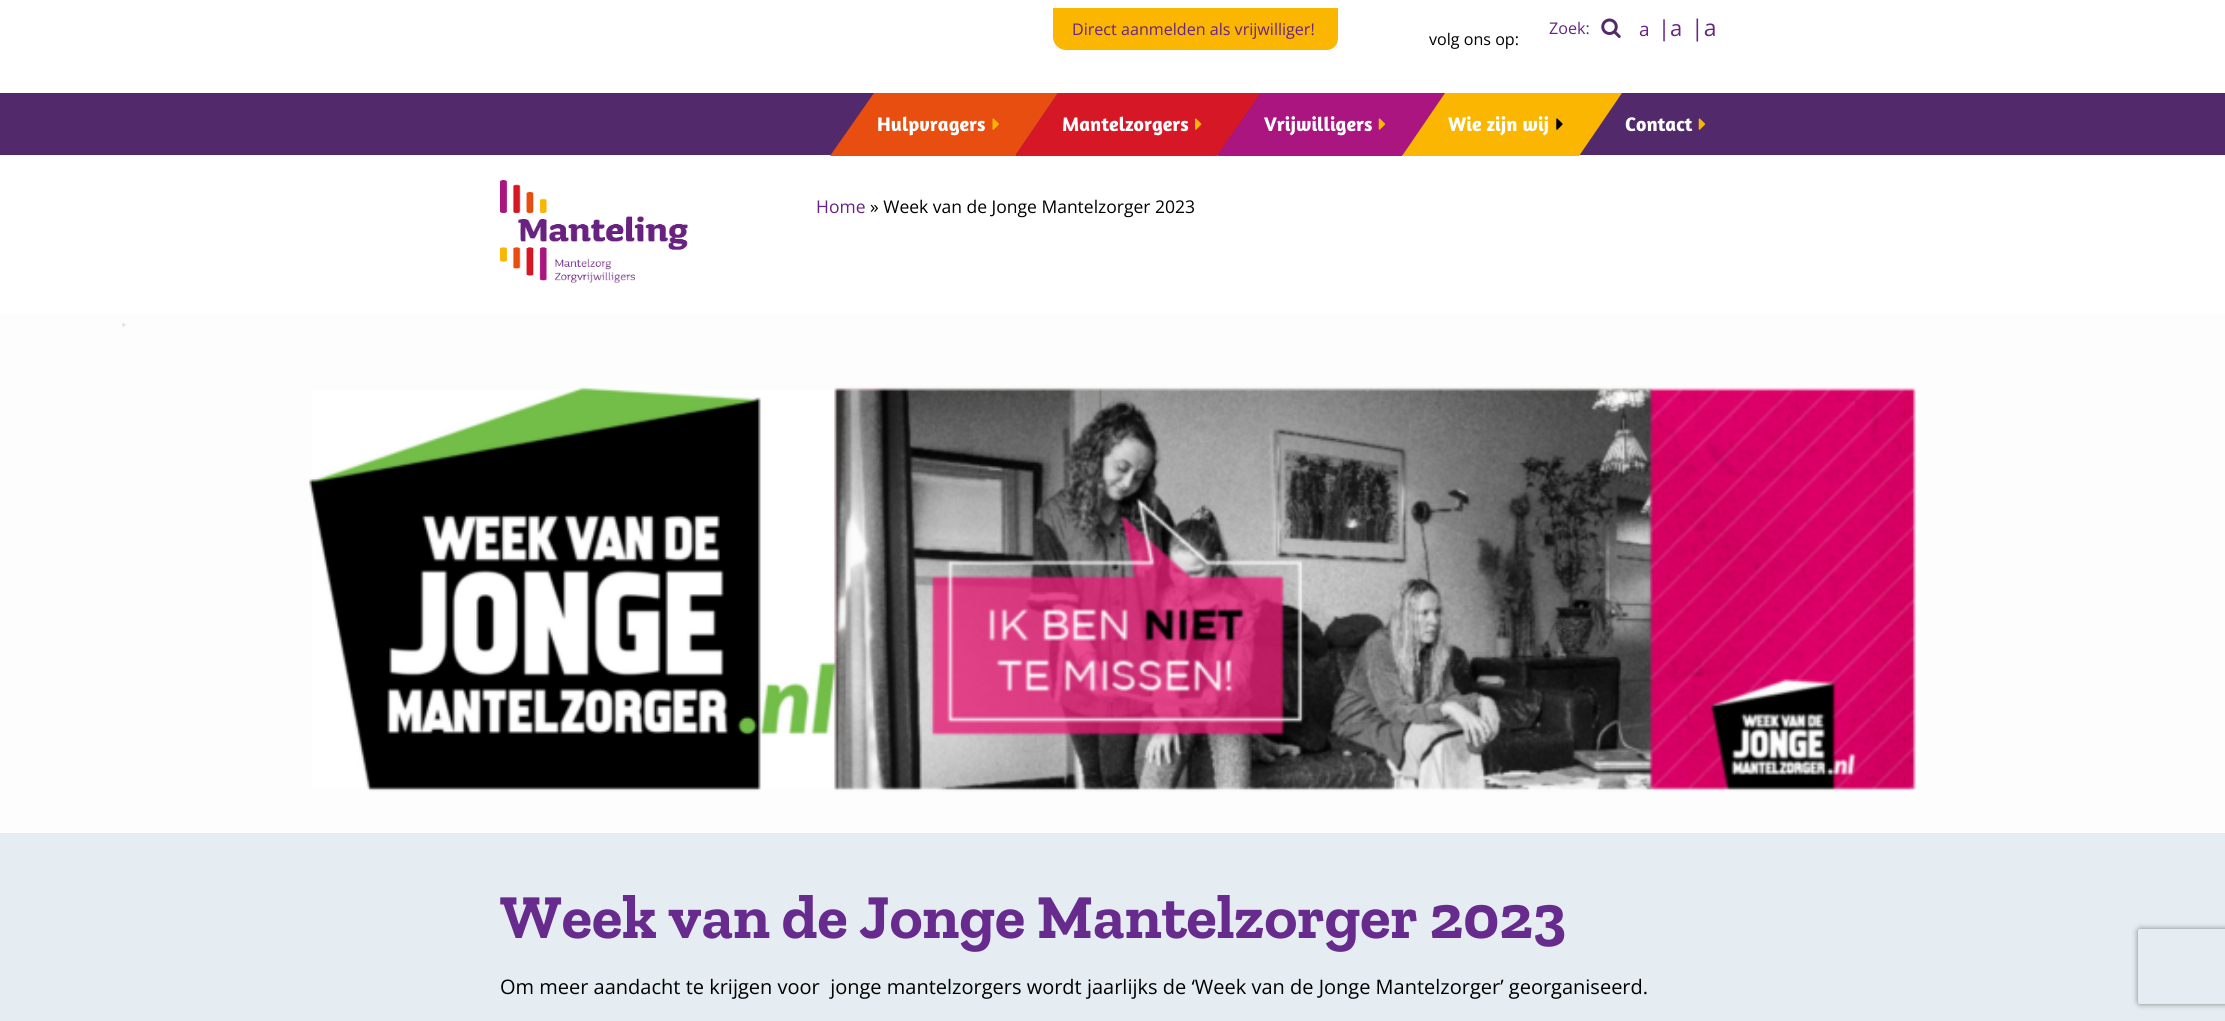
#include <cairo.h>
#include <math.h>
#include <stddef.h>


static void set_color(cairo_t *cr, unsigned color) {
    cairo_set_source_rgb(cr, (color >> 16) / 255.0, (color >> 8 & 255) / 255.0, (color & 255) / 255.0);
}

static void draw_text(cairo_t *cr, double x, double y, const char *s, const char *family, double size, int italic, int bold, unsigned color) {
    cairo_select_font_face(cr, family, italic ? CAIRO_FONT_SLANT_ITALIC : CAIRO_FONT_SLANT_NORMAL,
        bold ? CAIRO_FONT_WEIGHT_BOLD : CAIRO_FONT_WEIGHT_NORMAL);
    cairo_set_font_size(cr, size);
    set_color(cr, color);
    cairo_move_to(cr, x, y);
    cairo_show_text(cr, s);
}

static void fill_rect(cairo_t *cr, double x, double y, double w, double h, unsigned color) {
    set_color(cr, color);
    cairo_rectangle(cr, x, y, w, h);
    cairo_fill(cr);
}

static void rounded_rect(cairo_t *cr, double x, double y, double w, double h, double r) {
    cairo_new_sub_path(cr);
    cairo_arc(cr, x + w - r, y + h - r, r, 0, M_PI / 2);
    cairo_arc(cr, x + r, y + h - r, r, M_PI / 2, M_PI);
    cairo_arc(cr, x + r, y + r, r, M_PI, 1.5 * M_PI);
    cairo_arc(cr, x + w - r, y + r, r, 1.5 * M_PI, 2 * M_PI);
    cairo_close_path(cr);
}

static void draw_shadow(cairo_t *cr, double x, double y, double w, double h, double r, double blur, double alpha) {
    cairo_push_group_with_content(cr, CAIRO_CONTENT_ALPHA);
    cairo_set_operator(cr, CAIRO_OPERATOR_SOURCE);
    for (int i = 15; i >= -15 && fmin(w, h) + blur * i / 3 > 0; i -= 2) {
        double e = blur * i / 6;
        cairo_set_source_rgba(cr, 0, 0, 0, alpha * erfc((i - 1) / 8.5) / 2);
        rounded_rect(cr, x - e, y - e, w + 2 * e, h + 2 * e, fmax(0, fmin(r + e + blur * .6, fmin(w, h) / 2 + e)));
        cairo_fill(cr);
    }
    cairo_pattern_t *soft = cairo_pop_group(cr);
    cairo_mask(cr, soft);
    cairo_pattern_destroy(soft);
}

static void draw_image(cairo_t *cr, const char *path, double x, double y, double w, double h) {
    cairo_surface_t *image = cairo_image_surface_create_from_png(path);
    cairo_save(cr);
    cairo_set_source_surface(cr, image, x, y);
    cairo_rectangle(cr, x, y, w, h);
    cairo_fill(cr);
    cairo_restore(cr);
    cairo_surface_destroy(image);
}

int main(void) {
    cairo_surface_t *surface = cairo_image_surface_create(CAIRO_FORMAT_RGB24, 2225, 1021);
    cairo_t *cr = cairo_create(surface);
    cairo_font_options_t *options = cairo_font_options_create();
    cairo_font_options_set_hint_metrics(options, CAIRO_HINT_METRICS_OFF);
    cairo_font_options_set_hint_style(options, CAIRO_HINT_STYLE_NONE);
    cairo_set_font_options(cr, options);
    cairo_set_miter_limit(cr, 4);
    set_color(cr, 0xFFFFFF);
    cairo_paint(cr);
    set_color(cr, 0xFAB600);
    cairo_new_path(cr);
    cairo_move_to(cr, 1053, 8);
    cairo_line_to(cr, 1315, 8);
    cairo_line_to(cr, 1315, 50);
    cairo_line_to(cr, 1066, 50);
    cairo_curve_to(cr, 1059, 50, 1053, 44, 1053, 37);
    cairo_close_path(cr);
    cairo_fill(cr);
    draw_text(cr, 1072, 35, "Direct aanmelden als vrijwilliger!", "Open Sans", 16.1, 0, 0, 0x662483);
    set_color(cr, 0xFAB600);
    cairo_new_path(cr);
    cairo_move_to(cr, 1315, 8);
    cairo_line_to(cr, 1338, 8);
    cairo_line_to(cr, 1338, 38.5);
    cairo_curve_to(cr, 1338, 45, 1333, 50, 1326.5, 50);
    cairo_line_to(cr, 1315, 50);
    cairo_close_path(cr);
    cairo_fill(cr);
    draw_text(cr, 1429, 45, "volg ons op:", "Open Sans", 16.1, 0, 0, 0x000000);
    draw_text(cr, 1549, 34, "Zoek:", "Open Sans", 16.1, 0, 0, 0x662483);
    draw_image(cr, "assets/img1.png", 1601, 18, 20, 20);
    draw_text(cr, 1639, 36, "a", "Open Sans", 19, 0, 0, 0x662483);
    draw_text(cr, 1658, 36, "|a", "Open Sans", 22, 0, 0, 0x662483);
    draw_text(cr, 1691, 36, "|a", "Open Sans", 23, 0, 0, 0x662483);
    fill_rect(cr, 0, 93, 2225, 62, 0x522A6B);
    set_color(cr, 0xE84E0F);
    cairo_new_path(cr);
    cairo_move_to(cr, 874, 93);
    cairo_line_to(cr, 1058, 93);
    cairo_line_to(cr, 1015, 156);
    cairo_line_to(cr, 830, 156);
    cairo_close_path(cr);
    cairo_fill(cr);
    draw_text(cr, 877, 131, "Hulpvragers", "Amaranth", 20, 0, 1, 0xFFFFFF);
    draw_image(cr, "assets/img2.png", 992, 118, 7, 12);
    set_color(cr, 0xD61726);
    cairo_new_path(cr);
    cairo_move_to(cr, 1058, 93);
    cairo_line_to(cr, 1261, 93);
    cairo_line_to(cr, 1217, 156);
    cairo_line_to(cr, 1015, 156);
    cairo_close_path(cr);
    cairo_fill(cr);
    draw_text(cr, 1062, 131, "Mantelzorgers", "Amaranth", 20, 0, 1, 0xFFFFFF);
    draw_image(cr, "assets/img3.png", 1195, 118, 7, 12);
    set_color(cr, 0xAA1580);
    cairo_new_path(cr);
    cairo_move_to(cr, 1261, 93);
    cairo_line_to(cr, 1445, 93);
    cairo_line_to(cr, 1402, 156);
    cairo_line_to(cr, 1217, 156);
    cairo_close_path(cr);
    cairo_fill(cr);
    draw_text(cr, 1264, 131, "Vrijwilligers", "Amaranth", 20, 0, 1, 0xFFFFFF);
    draw_image(cr, "assets/img4.png", 1378, 118, 8, 12);
    set_color(cr, 0xFAB600);
    cairo_new_path(cr);
    cairo_move_to(cr, 1445, 93);
    cairo_line_to(cr, 1622, 93);
    cairo_line_to(cr, 1579, 156);
    cairo_line_to(cr, 1402, 156);
    cairo_close_path(cr);
    cairo_fill(cr);
    draw_text(cr, 1448, 131, "Wie zijn wij", "Amaranth", 20, 0, 1, 0xFFFFFF);
    draw_image(cr, "assets/img5.png", 1556, 118, 7, 12);
    draw_text(cr, 1625, 131, "Contact", "Amaranth", 20, 0, 1, 0xFFFFFF);
    draw_image(cr, "assets/img6.png", 1698, 118, 8, 12);
    draw_image(cr, "assets/img7.png", 500, 180, 188, 103);
    draw_text(cr, 816, 213, "Home", "Open Sans", 17.5, 0, 0, 0x662483);
    draw_text(cr, 870, 213, "» Week van de Jonge Mantelzorger 2023", "Open Sans", 17.5, 0, 0, 0x000000);
    draw_image(cr, "assets/img8.png", 0, 314, 2225, 519);
    fill_rect(cr, 0, 833, 2225, 188, 0xE5EDF2);
    draw_text(cr, 500, 938, "Week van de Jonge Mantelzorger 2023", "Zilla Slab", 62.5, 0, 1, 0x672A8D);
    draw_text(cr, 500, 994, "Om meer aandacht te krijgen voor  jonge mantelzorgers wordt jaarlijks de ‘Week van de Jonge Mantelzorger’ georganiseerd.", "Open Sans", 20, 0, 0, 0x000000);
    cairo_save(cr);
    cairo_set_fill_rule(cr, CAIRO_FILL_RULE_EVEN_ODD);
    cairo_new_path(cr);
    cairo_move_to(cr, 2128, 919);
    cairo_line_to(cr, 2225, 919);
    cairo_line_to(cr, 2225, 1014);
    cairo_line_to(cr, 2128, 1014);
    cairo_close_path(cr);
    cairo_move_to(cr, 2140.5, 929);
    cairo_line_to(cr, 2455.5, 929);
    cairo_curve_to(cr, 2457, 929, 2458, 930, 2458, 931.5);
    cairo_line_to(cr, 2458, 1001.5);
    cairo_curve_to(cr, 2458, 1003, 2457, 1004, 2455.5, 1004);
    cairo_line_to(cr, 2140.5, 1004);
    cairo_curve_to(cr, 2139, 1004, 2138, 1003, 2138, 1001.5);
    cairo_line_to(cr, 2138, 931.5);
    cairo_curve_to(cr, 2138, 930, 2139, 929, 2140.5, 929);
    cairo_close_path(cr);
    cairo_clip(cr);
    set_color(cr, 0x808080);
    draw_shadow(cr, 2138, 929, 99, 75, 2.5, 3, 1);
    cairo_restore(cr);
    cairo_surface_write_to_png(surface, "output.png");
    cairo_font_options_destroy(options);
    cairo_destroy(cr);
    cairo_surface_destroy(surface);
    return 0;
}
